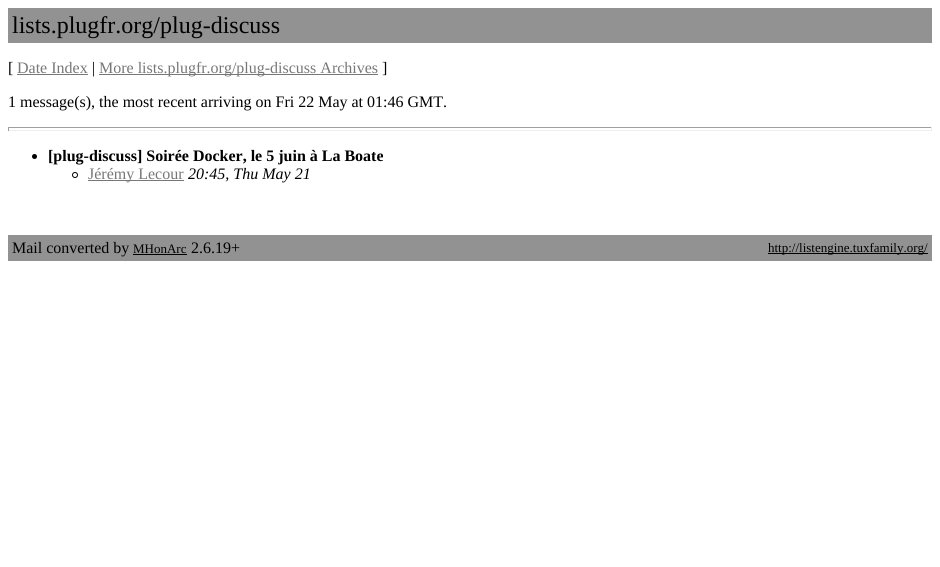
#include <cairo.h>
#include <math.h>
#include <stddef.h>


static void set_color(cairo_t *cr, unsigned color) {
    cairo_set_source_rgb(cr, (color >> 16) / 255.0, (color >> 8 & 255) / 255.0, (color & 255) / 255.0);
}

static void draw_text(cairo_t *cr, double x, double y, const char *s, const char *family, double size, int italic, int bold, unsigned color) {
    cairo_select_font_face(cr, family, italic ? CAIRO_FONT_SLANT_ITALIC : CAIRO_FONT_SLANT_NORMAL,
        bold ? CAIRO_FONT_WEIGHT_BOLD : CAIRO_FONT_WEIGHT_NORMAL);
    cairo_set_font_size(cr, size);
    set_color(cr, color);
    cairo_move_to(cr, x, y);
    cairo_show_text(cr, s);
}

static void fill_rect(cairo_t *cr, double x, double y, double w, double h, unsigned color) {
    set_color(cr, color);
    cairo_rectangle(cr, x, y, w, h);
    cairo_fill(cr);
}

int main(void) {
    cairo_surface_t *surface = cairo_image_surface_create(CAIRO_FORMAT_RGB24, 940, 567);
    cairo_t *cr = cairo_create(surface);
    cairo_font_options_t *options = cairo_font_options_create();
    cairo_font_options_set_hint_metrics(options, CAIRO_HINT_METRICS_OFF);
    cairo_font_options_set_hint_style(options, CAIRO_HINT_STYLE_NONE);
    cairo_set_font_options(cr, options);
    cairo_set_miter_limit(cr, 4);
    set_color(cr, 0xFFFFFF);
    cairo_paint(cr);
    fill_rect(cr, 8, 8, 924, 35, 0x929292);
    draw_text(cr, 12, 33, "lists.plugfr.org/plug-discuss", "Liberation Serif", 24, 0, 0, 0x000000);
    draw_text(cr, 8, 73, "[", "Liberation Serif", 16, 0, 0, 0x000000);
    draw_text(cr, 17, 73, "Date Index", "Liberation Serif", 16, 0, 0, 0x777777);
    fill_rect(cr, 17, 74, 71, 1, 0x777777);
    draw_text(cr, 92, 73, "|", "Liberation Serif", 16, 0, 0, 0x000000);
    fill_rect(cr, 99, 74, 279, 1, 0x777777);
    draw_text(cr, 99, 73, "More lists.plugfr.org/plug-discuss Archives", "Liberation Serif", 16, 0, 0, 0x777777);
    draw_text(cr, 382, 73, "]", "Liberation Serif", 16, 0, 0, 0x000000);
    draw_text(cr, 8, 107, "1 message(s), the most recent arriving on Fri 22 May at 01:46 GMT.", "Liberation Serif", 16, 0, 0, 0x000000);
    fill_rect(cr, 8, 127, 924, 1, 0x9F9F9F);
    fill_rect(cr, 931, 127, 1, 4, 0xEEEEEE);
    fill_rect(cr, 8, 130, 924, 1, 0xEEEEEE);
    fill_rect(cr, 8, 127, 1, 4, 0x9F9F9F);
    set_color(cr, 0x000000);
    cairo_new_path(cr);
    cairo_arc(cr, 34.5, 156.5, 2.5, 0, 2 * M_PI);
    cairo_fill(cr);
    draw_text(cr, 48, 161, "[plug-discuss] Soirée Docker, le 5 juin à La Boate", "Liberation Serif", 16, 0, 1, 0x000000);
    cairo_new_path(cr);
    cairo_arc(cr, 75, 175, 2.5, 0, 2 * M_PI);
    cairo_set_line_width(cr, 1);
    cairo_stroke(cr);
    fill_rect(cr, 88, 180, 96, 1, 0x777777);
    draw_text(cr, 88, 179, "Jérémy Lecour", "Liberation Serif", 16, 0, 0, 0x777777);
    draw_text(cr, 188, 179, "20:45, Thu May 21", "Liberation Serif", 16, 1, 0, 0x000000);
    fill_rect(cr, 8, 235, 924, 26, 0x929292);
    draw_text(cr, 12, 253, "Mail converted by", "Liberation Serif", 16, 0, 0, 0x000000);
    draw_text(cr, 133, 253, "MHonArc", "Liberation Serif", 13, 0, 0, 0x000000);
    fill_rect(cr, 133, 254, 54, 1, 0x000000);
    draw_text(cr, 191, 253, "2.6.19+", "Liberation Serif", 16, 0, 0, 0x000000);
    fill_rect(cr, 768, 253, 160, 1, 0x000000);
    draw_text(cr, 768, 252, "http://listengine.tuxfamily.org/", "Liberation Serif", 13, 0, 0, 0x000000);
    cairo_surface_write_to_png(surface, "output.png");
    cairo_font_options_destroy(options);
    cairo_destroy(cr);
    cairo_surface_destroy(surface);
    return 0;
}
